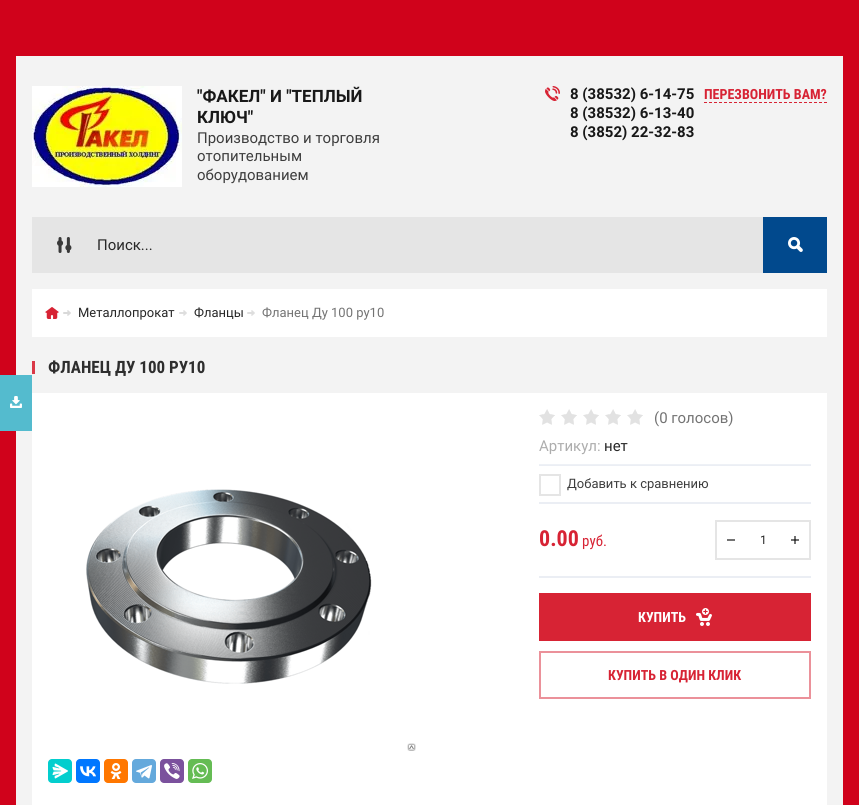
#include <cairo.h>
#include <math.h>
#include <stddef.h>


static void set_color(cairo_t *cr, unsigned color) {
    cairo_set_source_rgb(cr, (color >> 16) / 255.0, (color >> 8 & 255) / 255.0, (color & 255) / 255.0);
}

static void draw_text(cairo_t *cr, double x, double y, const char *s, const char *family, double size, int italic, int bold, unsigned color) {
    cairo_select_font_face(cr, family, italic ? CAIRO_FONT_SLANT_ITALIC : CAIRO_FONT_SLANT_NORMAL,
        bold ? CAIRO_FONT_WEIGHT_BOLD : CAIRO_FONT_WEIGHT_NORMAL);
    cairo_set_font_size(cr, size);
    set_color(cr, color);
    cairo_move_to(cr, x, y);
    cairo_show_text(cr, s);
}

static void fill_rect(cairo_t *cr, double x, double y, double w, double h, unsigned color) {
    set_color(cr, color);
    cairo_rectangle(cr, x, y, w, h);
    cairo_fill(cr);
}

static void rounded_rect(cairo_t *cr, double x, double y, double w, double h, double r) {
    cairo_new_sub_path(cr);
    cairo_arc(cr, x + w - r, y + h - r, r, 0, M_PI / 2);
    cairo_arc(cr, x + r, y + h - r, r, M_PI / 2, M_PI);
    cairo_arc(cr, x + r, y + r, r, M_PI, 1.5 * M_PI);
    cairo_arc(cr, x + w - r, y + r, r, 1.5 * M_PI, 2 * M_PI);
    cairo_close_path(cr);
}

static void draw_image(cairo_t *cr, const char *path, double x, double y, double w, double h) {
    cairo_surface_t *image = cairo_image_surface_create_from_png(path);
    cairo_save(cr);
    cairo_set_source_surface(cr, image, x, y);
    cairo_rectangle(cr, x, y, w, h);
    cairo_fill(cr);
    cairo_restore(cr);
    cairo_surface_destroy(image);
}

int main(void) {
    cairo_surface_t *surface = cairo_image_surface_create(CAIRO_FORMAT_RGB24, 859, 805);
    cairo_t *cr = cairo_create(surface);
    cairo_font_options_t *options = cairo_font_options_create();
    cairo_font_options_set_hint_metrics(options, CAIRO_HINT_METRICS_OFF);
    cairo_font_options_set_hint_style(options, CAIRO_HINT_STYLE_NONE);
    cairo_set_font_options(cr, options);
    cairo_set_miter_limit(cr, 4);
    set_color(cr, 0xD0021B);
    cairo_paint(cr);
    fill_rect(cr, 16, 56, 827, 749, 0xF3F3F3);
    draw_image(cr, "assets/img1.png", 32, 86, 150, 101);
    draw_text(cr, 197, 102, "\"ФАКЕЛ\" И \"ТЕПЛЫЙ", "Roboto", 17, 0, 1, 0x181818);
    draw_text(cr, 197, 123, "КЛЮЧ\"", "Roboto", 17, 0, 1, 0x181818);
    draw_text(cr, 197, 143, "Производство и торговля", "Roboto", 15, 0, 0, 0x3D3D3D);
    draw_text(cr, 197, 161, "отопительным", "Roboto", 15, 0, 0, 0x3D3D3D);
    draw_text(cr, 197, 180, "оборудованием", "Roboto", 15, 0, 0, 0x3D3D3D);
    draw_image(cr, "assets/img2.png", 545, 86, 15, 15);
    draw_text(cr, 570, 99, "8 (38532) 6-14-75", "Roboto", 15, 0, 1, 0x181818);
    draw_text(cr, 570, 118, "8 (38532) 6-13-40", "Roboto", 15, 0, 1, 0x181818);
    draw_text(cr, 570, 137, "8 (3852) 22-32-83", "Roboto", 15, 0, 1, 0x181818);
    draw_text(cr, 704, 99, "ПЕРЕЗВОНИТЬ ВАМ?", "Roboto Condensed", 14, 0, 1, 0xD72334);
    cairo_new_path(cr);
    cairo_move_to(cr, 704, 102.5);
    cairo_line_to(cr, 827, 102.5);
    cairo_set_line_width(cr, 1);
    cairo_set_dash(cr, (double[]){3, 2}, 2, 0);
    cairo_stroke(cr);
    fill_rect(cr, 32, 217, 731, 56, 0xE5E5E5);
    draw_image(cr, "assets/img3.png", 57, 237, 15, 16);
    draw_text(cr, 97, 250, "Поиск...", "Roboto", 15, 0, 0, 0x272727);
    fill_rect(cr, 763, 217, 64, 56, 0x01498D);
    draw_image(cr, "assets/img4.png", 788, 237, 15, 15);
    fill_rect(cr, 0, 375, 32, 56, 0x54BBCE);
    draw_image(cr, "assets/img5.png", 10, 396, 12, 12);
    fill_rect(cr, 32, 289, 795, 48, 0xFFFFFF);
    draw_image(cr, "assets/img6.png", 45, 307, 14, 12);
    draw_image(cr, "assets/img7.png", 63, 310, 8, 6);
    draw_text(cr, 78, 317, "Металлопрокат", "Roboto", 13, 0, 0, 0x272727);
    draw_image(cr, "assets/img8.png", 179, 310, 8, 6);
    draw_text(cr, 194, 317, "Фланцы", "Roboto", 13, 0, 0, 0x272727);
    draw_image(cr, "assets/img8.png", 247, 310, 8, 6);
    draw_text(cr, 262, 317, "Фланец Ду 100 ру10", "Roboto", 13, 0, 0, 0x737373);
    fill_rect(cr, 32, 361, 3, 13, 0xDA3847);
    draw_text(cr, 48, 373, "ФЛАНЕЦ ДУ 100 РУ10", "Roboto Condensed", 17, 0, 1, 0x2E2E2E);
    fill_rect(cr, 32, 393, 795, 412, 0xFFFFFF);
    fill_rect(cr, 794, 536, 2, 8, 0x737373);
    draw_image(cr, "assets/img9.png", 86, 489, 330, 262);
    set_color(cr, 0x03CECE);
    rounded_rect(cr, 48, 759, 24, 24, 4);
    cairo_fill(cr);
    draw_image(cr, "assets/img10.png", 52, 763, 16, 16);
    set_color(cr, 0x0077FF);
    rounded_rect(cr, 76, 759, 24, 24, 4);
    cairo_fill(cr);
    draw_image(cr, "assets/img11.png", 80, 766, 16, 11);
    set_color(cr, 0xFF7700);
    rounded_rect(cr, 104, 759, 24, 24, 4);
    cairo_fill(cr);
    draw_image(cr, "assets/img12.png", 110, 763, 12, 16);
    set_color(cr, 0x64A9DC);
    rounded_rect(cr, 132, 759, 24, 24, 4);
    cairo_fill(cr);
    draw_image(cr, "assets/img13.png", 136, 765, 16, 14);
    set_color(cr, 0x7B519D);
    rounded_rect(cr, 160, 759, 24, 24, 4);
    cairo_fill(cr);
    draw_image(cr, "assets/img14.png", 164, 763, 16, 16);
    set_color(cr, 0x65BC54);
    rounded_rect(cr, 188, 759, 24, 24, 4);
    cairo_fill(cr);
    draw_image(cr, "assets/img15.png", 192, 763, 16, 16);
    draw_image(cr, "assets/img16.png", 539, 409, 104, 16);
    draw_text(cr, 654, 423, "(0 голосов)", "Roboto", 15, 0, 0, 0x737373);
    fill_rect(cr, 539, 464, 272, 1, 0xEEF1F6);
    draw_text(cr, 539, 451, "Артикул:", "Roboto", 15, 0, 0, 0xADADAD);
    draw_text(cr, 604, 451, "нет", "Roboto", 15, 0, 0, 0x272727);
    fill_rect(cr, 539, 465, 272, 1, 0xEBEEF4);
    cairo_rectangle(cr, 540, 475, 20, 20);
    set_color(cr, 0xE5E5E5);
    cairo_set_line_width(cr, 2);
    cairo_set_dash(cr, NULL, 0, 0);
    cairo_stroke(cr);
    draw_text(cr, 567, 488, "Добавить к сравнению", "Roboto", 13, 0, 0, 0x3D3D3D);
    fill_rect(cr, 539, 502, 272, 2, 0xEBEEF4);
    fill_rect(cr, 539, 576, 272, 2, 0xEBEEF4);
    draw_text(cr, 539, 546, "0.00", "Roboto Condensed", 22, 0, 1, 0xD72334);
    draw_text(cr, 582, 546, "руб.", "Roboto Condensed", 15, 0, 0, 0xD72334);
    cairo_rectangle(cr, 716, 521, 94, 38);
    set_color(cr, 0xE5E5E5);
    cairo_stroke(cr);
    fill_rect(cr, 727, 539, 8, 2, 0x737373);
    draw_text(cr, 760, 544, "1", "Roboto", 12, 0, 0, 0x272727);
    fill_rect(cr, 791, 539, 8, 2, 0x737373);
    fill_rect(cr, 794, 539, 2, 2, 0x343434);
    fill_rect(cr, 539, 593, 272, 48, 0xD72334);
    draw_image(cr, "assets/img17.png", 696, 608, 16, 18);
    draw_text(cr, 638, 622, "КУПИТЬ", "Roboto Condensed", 14, 0, 1, 0xFFFFFF);
    cairo_rectangle(cr, 540, 652, 270, 46);
    set_color(cr, 0xEB919A);
    cairo_stroke(cr);
    draw_text(cr, 608, 680, "КУПИТЬ В ОДИН КЛИК", "Roboto Condensed", 14, 0, 1, 0xD72334);
    cairo_surface_write_to_png(surface, "output.png");
    cairo_font_options_destroy(options);
    cairo_destroy(cr);
    cairo_surface_destroy(surface);
    return 0;
}
